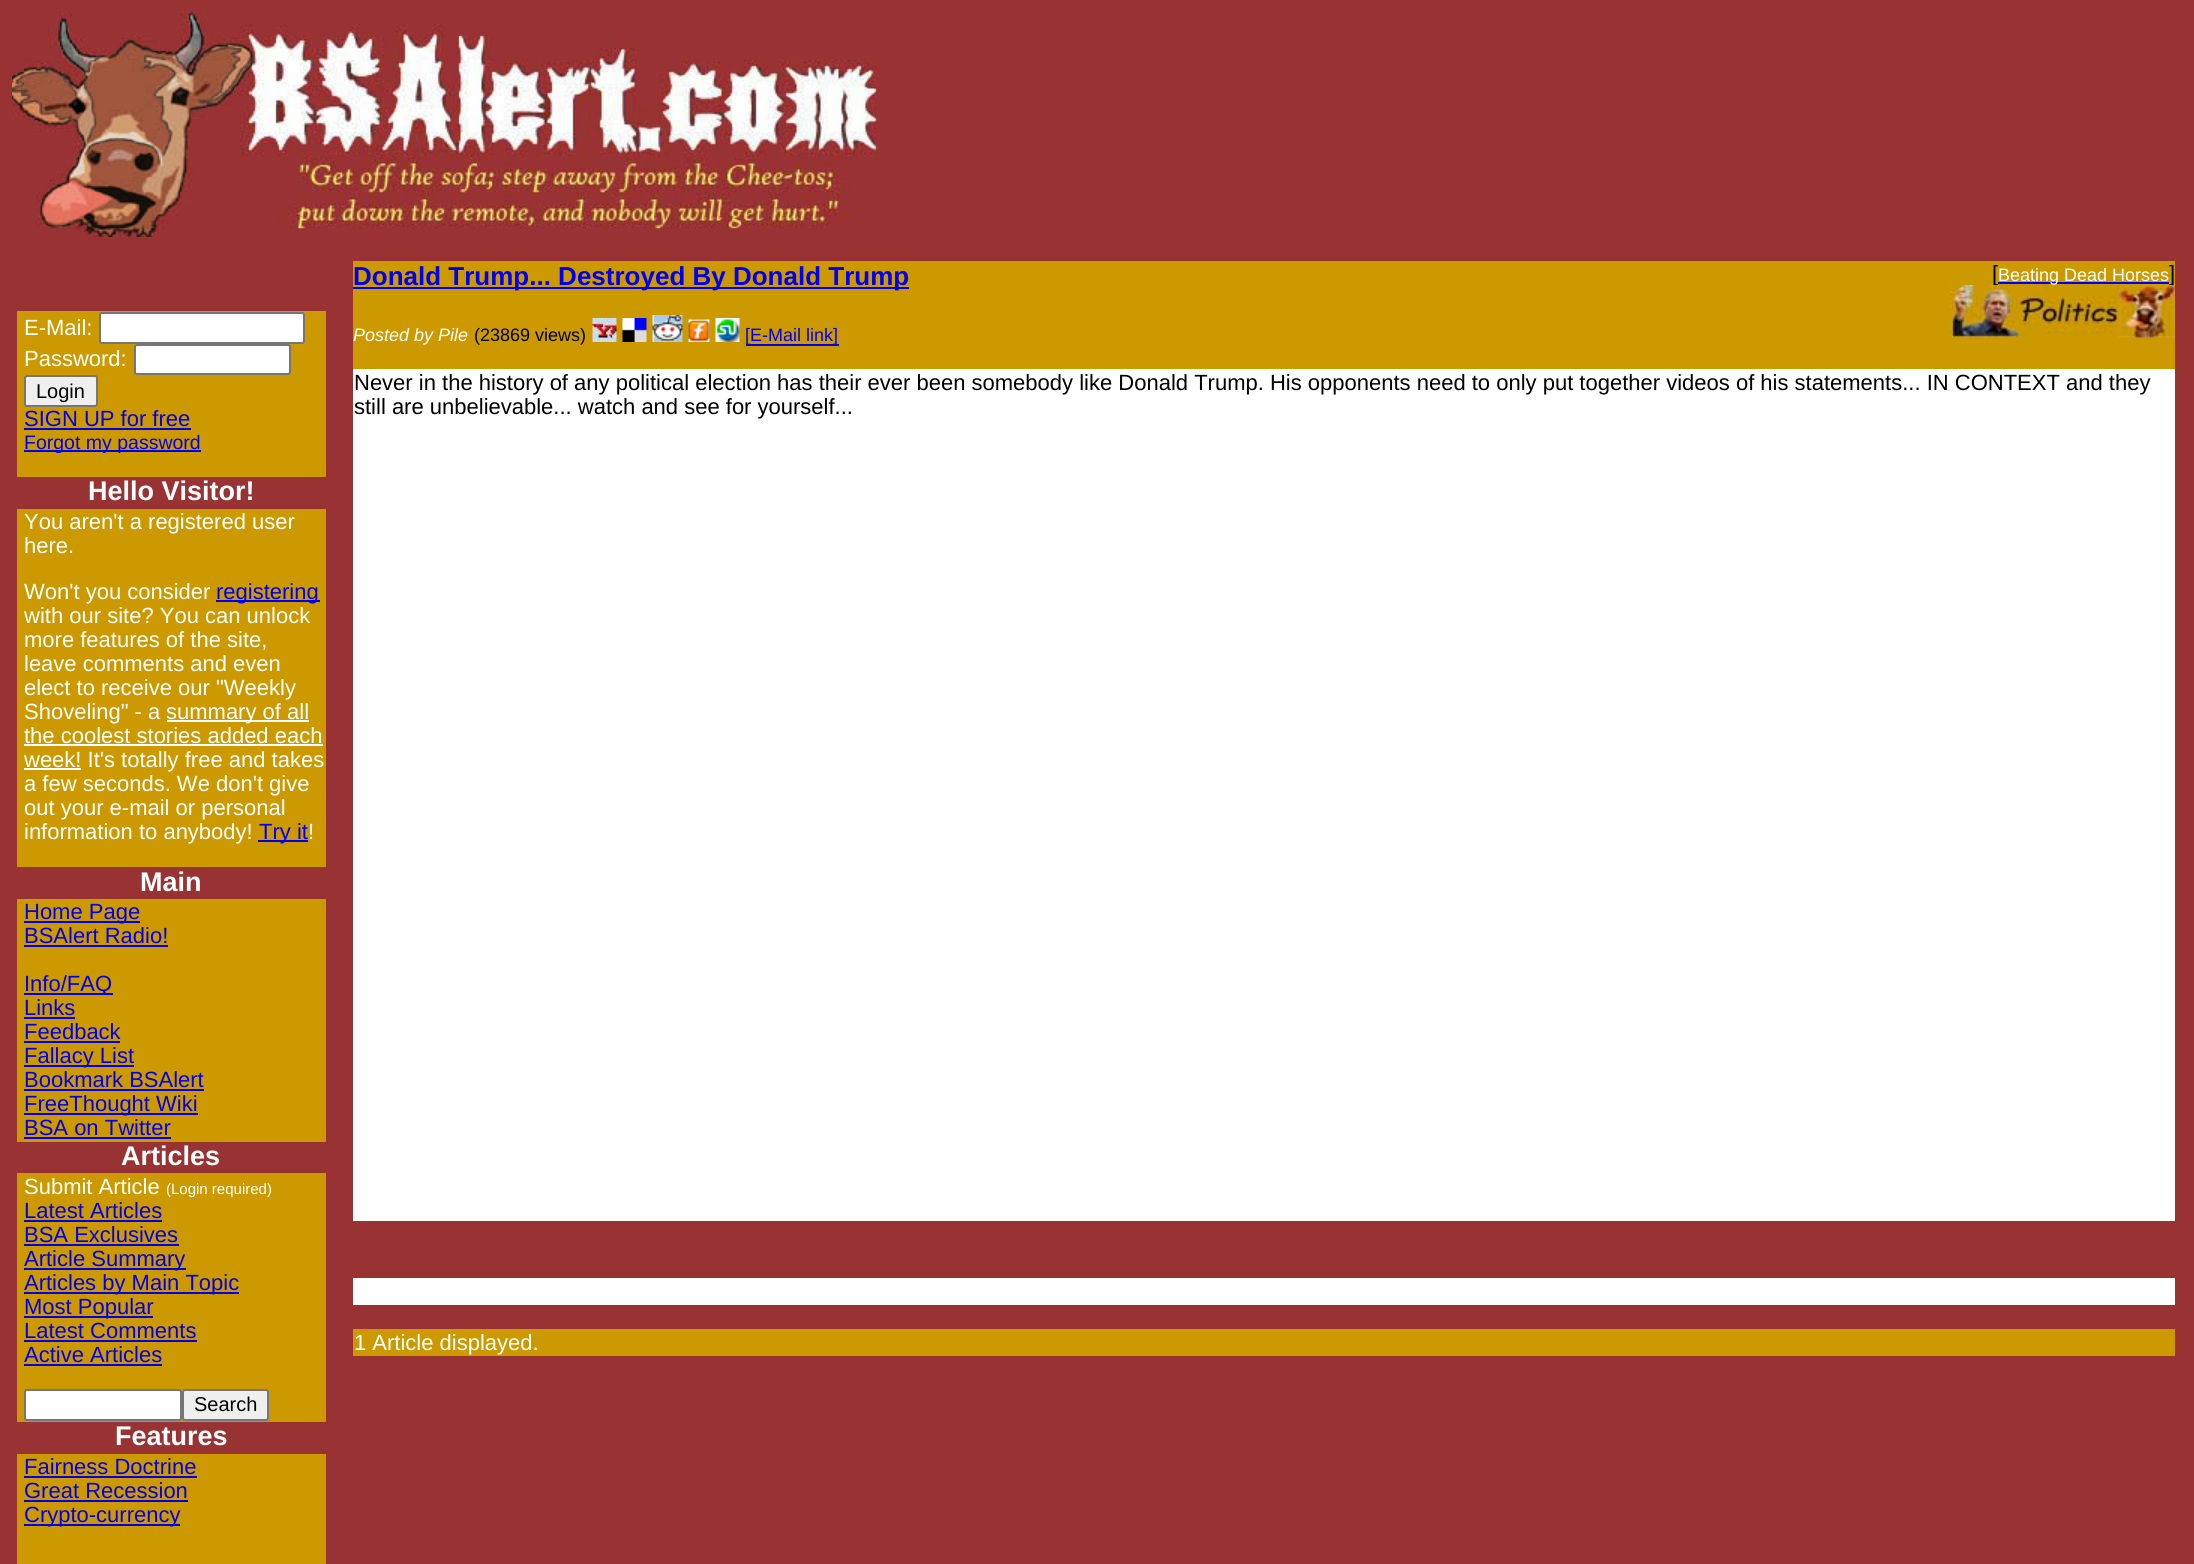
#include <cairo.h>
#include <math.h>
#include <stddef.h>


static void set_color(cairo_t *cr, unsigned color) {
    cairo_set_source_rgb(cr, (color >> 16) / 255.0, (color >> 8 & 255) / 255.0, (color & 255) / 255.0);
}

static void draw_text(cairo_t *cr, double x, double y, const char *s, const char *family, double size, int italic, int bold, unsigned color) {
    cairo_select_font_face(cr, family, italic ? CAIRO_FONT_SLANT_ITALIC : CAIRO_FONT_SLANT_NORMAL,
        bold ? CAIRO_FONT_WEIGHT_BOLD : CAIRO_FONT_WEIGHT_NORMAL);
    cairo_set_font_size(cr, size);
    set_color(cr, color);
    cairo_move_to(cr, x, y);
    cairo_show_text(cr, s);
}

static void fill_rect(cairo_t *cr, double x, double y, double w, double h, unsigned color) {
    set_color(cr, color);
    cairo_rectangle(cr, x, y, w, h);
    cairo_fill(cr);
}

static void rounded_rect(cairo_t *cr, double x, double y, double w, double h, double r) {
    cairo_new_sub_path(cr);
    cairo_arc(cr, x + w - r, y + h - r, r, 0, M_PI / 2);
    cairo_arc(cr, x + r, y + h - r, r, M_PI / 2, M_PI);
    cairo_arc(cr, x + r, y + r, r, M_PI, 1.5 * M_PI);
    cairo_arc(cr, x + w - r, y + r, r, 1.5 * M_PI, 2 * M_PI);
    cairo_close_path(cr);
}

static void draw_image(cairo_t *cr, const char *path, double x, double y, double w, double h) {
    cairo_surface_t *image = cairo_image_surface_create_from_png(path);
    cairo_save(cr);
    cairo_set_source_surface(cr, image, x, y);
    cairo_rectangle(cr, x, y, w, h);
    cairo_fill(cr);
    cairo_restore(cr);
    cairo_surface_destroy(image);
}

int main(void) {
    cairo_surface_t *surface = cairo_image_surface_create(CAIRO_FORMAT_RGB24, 2194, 1564);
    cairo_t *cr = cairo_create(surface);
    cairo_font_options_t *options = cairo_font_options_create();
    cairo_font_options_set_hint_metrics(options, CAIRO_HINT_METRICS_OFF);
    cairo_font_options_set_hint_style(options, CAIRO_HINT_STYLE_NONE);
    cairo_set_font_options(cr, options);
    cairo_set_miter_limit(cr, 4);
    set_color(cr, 0x993333);
    cairo_paint(cr);
    draw_image(cr, "assets/img1.png", 12, 12, 865, 225);
    fill_rect(cr, 17, 311, 309, 166, 0xCC9900);
    draw_text(cr, 24, 335, "E-Mail:", "Liberation Sans", 22, 0, 0, 0xFFFFFF);
    rounded_rect(cr, 100, 313, 204, 30, 2);
    cairo_fill_preserve(cr);
    set_color(cr, 0x767676);
    cairo_stroke(cr);
    draw_text(cr, 24, 366, "Password:", "Liberation Sans", 22, 0, 0, 0xFFFFFF);
    rounded_rect(cr, 135, 345, 155, 29, 2);
    cairo_fill_preserve(cr);
    set_color(cr, 0x767676);
    cairo_stroke(cr);
    set_color(cr, 0xEFEFEF);
    rounded_rect(cr, 25, 376, 72, 30, 2);
    cairo_fill_preserve(cr);
    set_color(cr, 0x767676);
    cairo_stroke(cr);
    draw_text(cr, 36, 398, "Login", "Liberation Sans", 20, 0, 0, 0x000000);
    draw_text(cr, 24, 426, "SIGN UP for free", "Liberation Sans", 22, 0, 0, 0x0000EE);
    fill_rect(cr, 24, 428, 167, 2, 0x0000EE);
    fill_rect(cr, 24, 450, 177, 2, 0x0000EE);
    draw_text(cr, 24, 449, "Forgot my password", "Liberation Sans", 19.5, 0, 0, 0x0000EE);
    draw_text(cr, 88, 500, "Hello Visitor!", "Liberation Sans", 27, 0, 1, 0xFFFFFF);
    fill_rect(cr, 17, 509, 309, 358, 0xCC9900);
    draw_text(cr, 24, 529, "You aren't a registered user", "Liberation Sans", 22, 0, 0, 0xFFFFFF);
    draw_text(cr, 24, 553, "here.", "Liberation Sans", 22, 0, 0, 0xFFFFFF);
    draw_text(cr, 24, 599, "Won't you consider", "Liberation Sans", 22, 0, 0, 0xFFFFFF);
    fill_rect(cr, 216, 600, 104, 2, 0x0000EE);
    draw_text(cr, 216, 599, "registering", "Liberation Sans", 22, 0, 0, 0x0000EE);
    draw_text(cr, 24, 623, "with our site? You can unlock", "Liberation Sans", 22, 0, 0, 0xFFFFFF);
    draw_text(cr, 24, 647, "more features of the site,", "Liberation Sans", 22, 0, 0, 0xFFFFFF);
    draw_text(cr, 24, 671, "leave comments and even", "Liberation Sans", 22, 0, 0, 0xFFFFFF);
    draw_text(cr, 24, 695, "elect to receive our \"Weekly", "Liberation Sans", 22, 0, 0, 0xFFFFFF);
    draw_text(cr, 24, 719, "Shoveling\" - a", "Liberation Sans", 22, 0, 0, 0xFFFFFF);
    fill_rect(cr, 167, 720, 142, 2, 0xFFFFFF);
    draw_text(cr, 166, 719, "summary of all", "Liberation Sans", 22, 0, 0, 0xFFFFFF);
    draw_text(cr, 24, 743, "the coolest stories added each", "Liberation Sans", 22, 0, 0, 0xFFFFFF);
    fill_rect(cr, 24, 744, 299, 2, 0xFFFFFF);
    fill_rect(cr, 24, 768, 57, 2, 0xFFFFFF);
    draw_text(cr, 24, 767, "week! It's totally free and takes", "Liberation Sans", 22, 0, 0, 0xFFFFFF);
    draw_text(cr, 24, 791, "a few seconds. We don't give", "Liberation Sans", 22, 0, 0, 0xFFFFFF);
    draw_text(cr, 24, 815, "out your e-mail or personal", "Liberation Sans", 22, 0, 0, 0xFFFFFF);
    draw_text(cr, 24, 839, "information to anybody!", "Liberation Sans", 22, 0, 0, 0xFFFFFF);
    fill_rect(cr, 258, 840, 50, 2, 0x0000EE);
    draw_text(cr, 259, 839, "Try it", "Liberation Sans", 22, 0, 0, 0x0000EE);
    draw_text(cr, 308, 839, "!", "Liberation Sans", 22, 0, 0, 0xFFFFFF);
    draw_text(cr, 140, 891, "Main", "Liberation Sans", 27, 0, 1, 0xFFFFFF);
    fill_rect(cr, 17, 899, 309, 243, 0xCC9900);
    fill_rect(cr, 24, 921, 116, 2, 0x0000EE);
    draw_text(cr, 24, 919, "Home Page", "Liberation Sans", 22, 0, 0, 0x0000EE);
    draw_text(cr, 24, 943, "BSAlert Radio!", "Liberation Sans", 22, 0, 0, 0x0000EE);
    fill_rect(cr, 24, 945, 144, 2, 0x0000EE);
    fill_rect(cr, 24, 993, 89, 2, 0x0000EE);
    draw_text(cr, 24, 991, "Info/FAQ", "Liberation Sans", 22, 0, 0, 0x0000EE);
    draw_text(cr, 24, 1015, "Links", "Liberation Sans", 22, 0, 0, 0x0000EE);
    fill_rect(cr, 24, 1017, 51, 2, 0x0000EE);
    draw_text(cr, 24, 1039, "Feedback", "Liberation Sans", 22, 0, 0, 0x0000EE);
    fill_rect(cr, 24, 1041, 96, 2, 0x0000EE);
    fill_rect(cr, 24, 1065, 110, 2, 0x0000EE);
    draw_text(cr, 24, 1063, "Fallacy List", "Liberation Sans", 22, 0, 0, 0x0000EE);
    draw_text(cr, 24, 1087, "Bookmark BSAlert", "Liberation Sans", 22, 0, 0, 0x0000EE);
    fill_rect(cr, 24, 1089, 180, 2, 0x0000EE);
    fill_rect(cr, 24, 1113, 174, 2, 0x0000EE);
    draw_text(cr, 24, 1111, "FreeThought Wiki", "Liberation Sans", 22, 0, 0, 0x0000EE);
    draw_text(cr, 24, 1135, "BSA on Twitter", "Liberation Sans", 22, 0, 0, 0x0000EE);
    fill_rect(cr, 24, 1137, 147, 2, 0x0000EE);
    draw_text(cr, 121, 1165, "Articles", "Liberation Sans", 27, 0, 1, 0xFFFFFF);
    fill_rect(cr, 17, 1173, 309, 249, 0xCC9900);
    draw_text(cr, 24, 1194, "Submit Article", "Liberation Sans", 22, 0, 0, 0xFFFFFF);
    draw_text(cr, 166, 1194, "(Login required)", "Liberation Sans", 15, 0, 0, 0xFFFFFF);
    draw_text(cr, 24, 1218, "Latest Articles", "Liberation Sans", 22, 0, 0, 0x0000EE);
    fill_rect(cr, 24, 1220, 138, 2, 0x0000EE);
    draw_text(cr, 24, 1242, "BSA Exclusives", "Liberation Sans", 22, 0, 0, 0x0000EE);
    fill_rect(cr, 24, 1244, 155, 2, 0x0000EE);
    fill_rect(cr, 24, 1268, 162, 2, 0x0000EE);
    draw_text(cr, 24, 1266, "Article Summary", "Liberation Sans", 22, 0, 0, 0x0000EE);
    fill_rect(cr, 24, 1292, 215, 2, 0x0000EE);
    draw_text(cr, 24, 1290, "Articles by Main Topic", "Liberation Sans", 22, 0, 0, 0x0000EE);
    fill_rect(cr, 24, 1316, 129, 2, 0x0000EE);
    draw_text(cr, 24, 1314, "Most Popular", "Liberation Sans", 22, 0, 0, 0x0000EE);
    draw_text(cr, 24, 1338, "Latest Comments", "Liberation Sans", 22, 0, 0, 0x0000EE);
    fill_rect(cr, 24, 1340, 173, 2, 0x0000EE);
    draw_text(cr, 24, 1362, "Active Articles", "Liberation Sans", 22, 0, 0, 0x0000EE);
    fill_rect(cr, 24, 1364, 138, 2, 0x0000EE);
    set_color(cr, 0xFFFFFF);
    rounded_rect(cr, 25, 1390, 156, 30, 2);
    cairo_fill_preserve(cr);
    set_color(cr, 0x767676);
    cairo_stroke(cr);
    set_color(cr, 0xEFEFEF);
    rounded_rect(cr, 183, 1390, 85, 30, 2);
    cairo_fill_preserve(cr);
    set_color(cr, 0x767676);
    cairo_stroke(cr);
    draw_text(cr, 194, 1411, "Search", "Liberation Sans", 20, 0, 0, 0x000000);
    draw_text(cr, 115, 1445, "Features", "Liberation Sans", 27, 0, 1, 0xFFFFFF);
    fill_rect(cr, 17, 1454, 309, 110, 0xCC9900);
    draw_text(cr, 24, 1474, "Fairness Doctrine", "Liberation Sans", 22, 0, 0, 0x0000EE);
    fill_rect(cr, 24, 1476, 173, 2, 0x0000EE);
    draw_text(cr, 24, 1498, "Great Recession", "Liberation Sans", 22, 0, 0, 0x0000EE);
    fill_rect(cr, 24, 1500, 164, 2, 0x0000EE);
    fill_rect(cr, 24, 1524, 156, 2, 0x0000EE);
    draw_text(cr, 24, 1522, "Crypto-currency", "Liberation Sans", 22, 0, 0, 0x0000EE);
    fill_rect(cr, 353, 261, 1822, 108, 0xCC9900);
    fill_rect(cr, 353, 287, 556, 2, 0x0000EE);
    draw_text(cr, 353, 285, "Donald Trump... Destroyed By Donald Trump", "Liberation Sans", 26, 0, 1, 0x0000EE);
    draw_text(cr, 353, 341, "Posted by Pile", "Liberation Sans", 18, 1, 0, 0xFFFFFF);
    draw_text(cr, 474, 341, "(23869 views)", "Liberation Sans", 18, 0, 0, 0x000000);
    draw_image(cr, "assets/img2.png", 592, 318, 25, 24);
    draw_image(cr, "assets/img3.png", 622, 318, 25, 24);
    draw_image(cr, "assets/img4.png", 652, 315, 31, 27);
    draw_image(cr, "assets/img5.png", 688, 319, 22, 23);
    draw_image(cr, "assets/img6.png", 715, 318, 25, 24);
    fill_rect(cr, 746, 344, 93, 2, 0x0000EE);
    draw_text(cr, 745, 341, "[E-Mail link]", "Liberation Sans", 18, 0, 0, 0x0000EE);
    draw_text(cr, 1992, 281, "[", "Liberation Sans", 22, 0, 0, 0x000000);
    fill_rect(cr, 1998, 282, 171, 2, 0x0000EE);
    draw_text(cr, 1998, 281, "Beating Dead Horses", "Liberation Sans", 18, 0, 0, 0xFFFFFF);
    draw_text(cr, 2169, 281, "]", "Liberation Sans", 22, 0, 0, 0x000000);
    draw_image(cr, "assets/img7.png", 1950, 285, 225, 53);
    fill_rect(cr, 353, 369, 1822, 852, 0xFFFFFF);
    draw_text(cr, 354, 390, "Never in the history of any political election has their ever been somebody like Donald Trump. His opponents need to only put together videos of his statements... IN CONTEXT and they", "Liberation Sans", 22, 0, 0, 0x000000);
    draw_text(cr, 354, 414, "still are unbelievable... watch and see for yourself...", "Liberation Sans", 22, 0, 0, 0x000000);
    fill_rect(cr, 353, 1278, 1822, 27, 0xFFFFFF);
    fill_rect(cr, 353, 1329, 1822, 27, 0xCC9900);
    draw_text(cr, 354, 1350, "1 Article displayed.", "Liberation Sans", 22, 0, 0, 0xFFFFFF);
    cairo_surface_write_to_png(surface, "output.png");
    cairo_font_options_destroy(options);
    cairo_destroy(cr);
    cairo_surface_destroy(surface);
    return 0;
}
